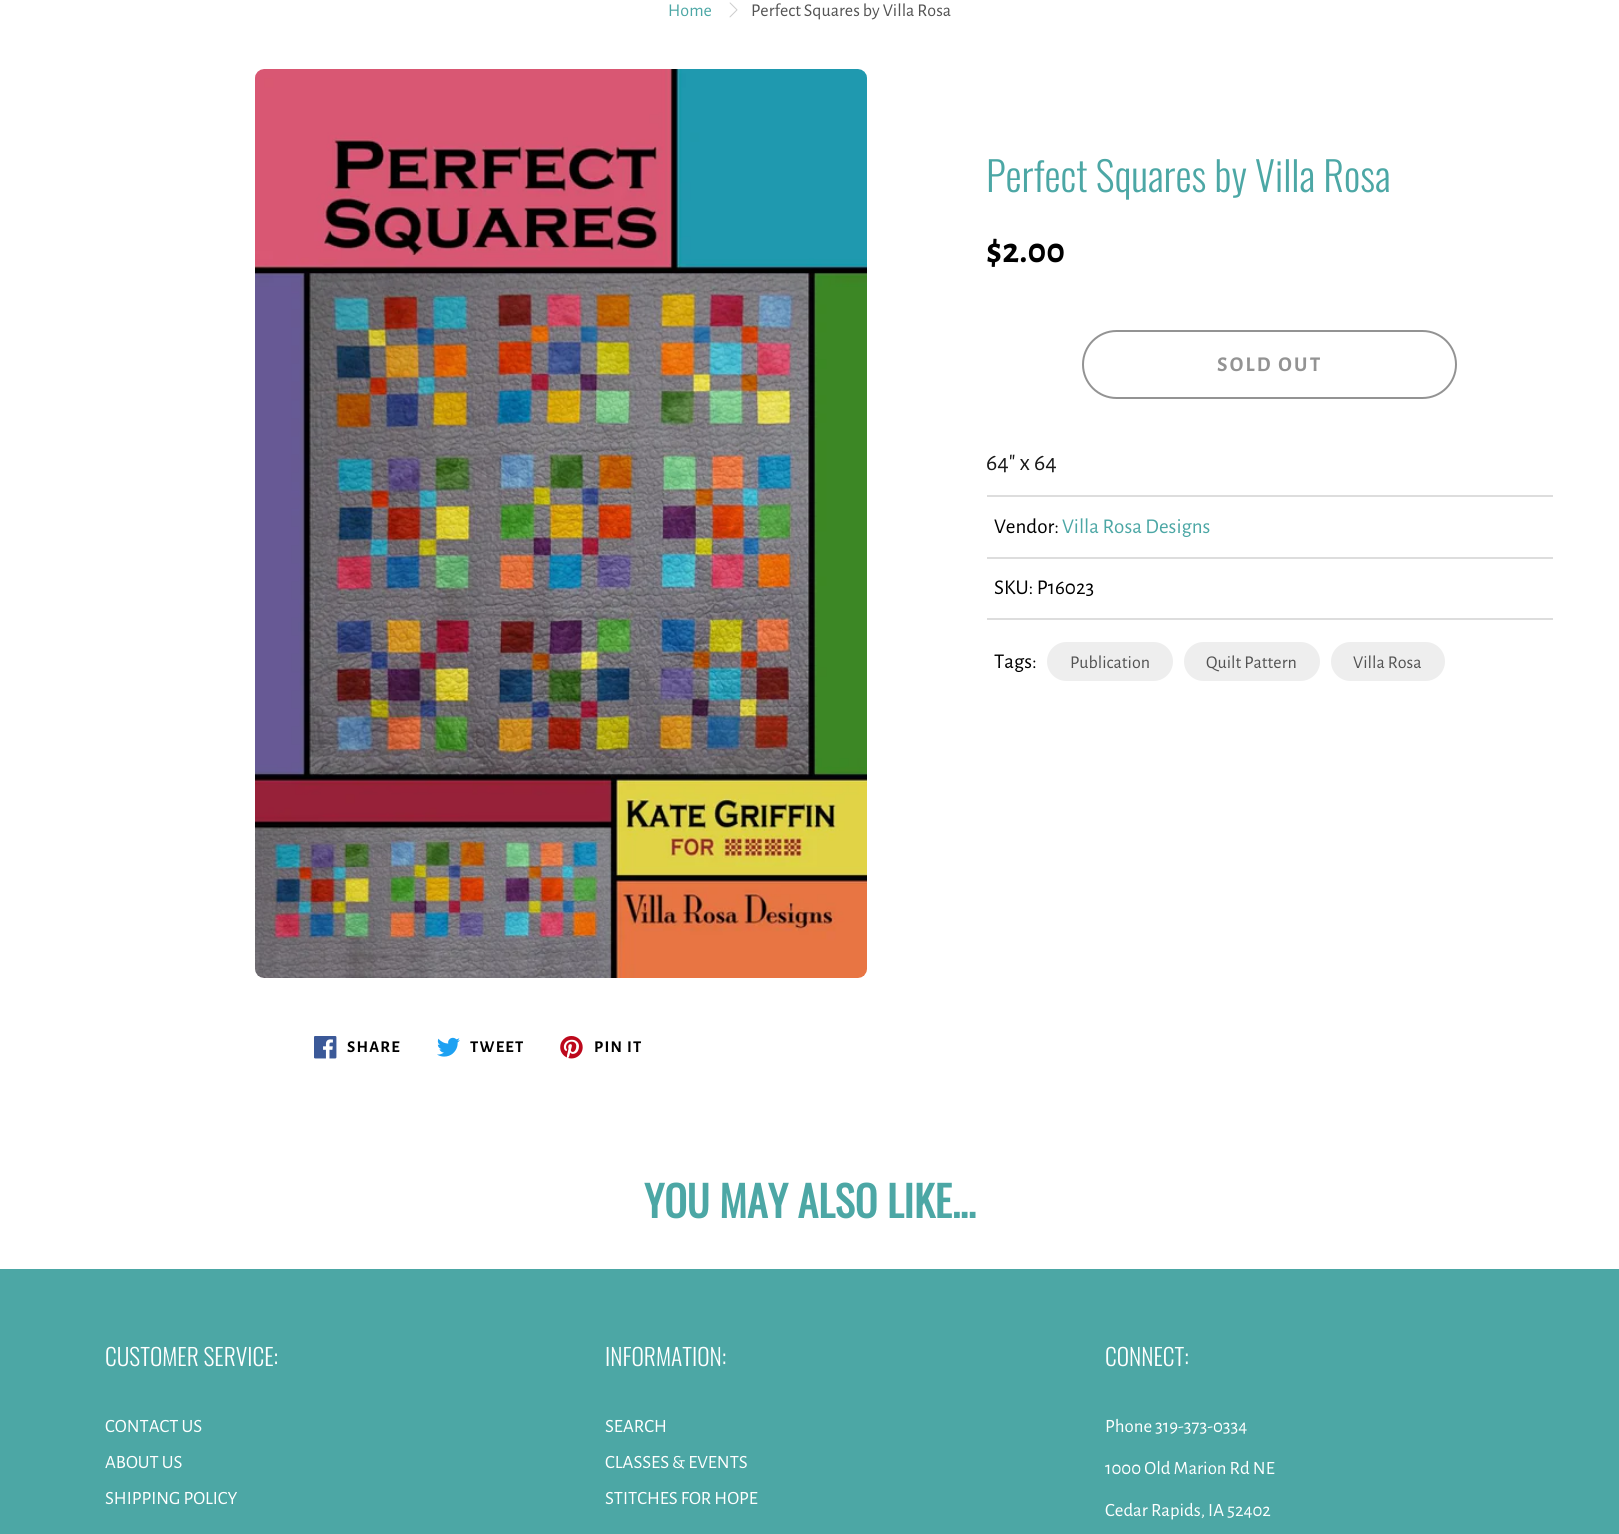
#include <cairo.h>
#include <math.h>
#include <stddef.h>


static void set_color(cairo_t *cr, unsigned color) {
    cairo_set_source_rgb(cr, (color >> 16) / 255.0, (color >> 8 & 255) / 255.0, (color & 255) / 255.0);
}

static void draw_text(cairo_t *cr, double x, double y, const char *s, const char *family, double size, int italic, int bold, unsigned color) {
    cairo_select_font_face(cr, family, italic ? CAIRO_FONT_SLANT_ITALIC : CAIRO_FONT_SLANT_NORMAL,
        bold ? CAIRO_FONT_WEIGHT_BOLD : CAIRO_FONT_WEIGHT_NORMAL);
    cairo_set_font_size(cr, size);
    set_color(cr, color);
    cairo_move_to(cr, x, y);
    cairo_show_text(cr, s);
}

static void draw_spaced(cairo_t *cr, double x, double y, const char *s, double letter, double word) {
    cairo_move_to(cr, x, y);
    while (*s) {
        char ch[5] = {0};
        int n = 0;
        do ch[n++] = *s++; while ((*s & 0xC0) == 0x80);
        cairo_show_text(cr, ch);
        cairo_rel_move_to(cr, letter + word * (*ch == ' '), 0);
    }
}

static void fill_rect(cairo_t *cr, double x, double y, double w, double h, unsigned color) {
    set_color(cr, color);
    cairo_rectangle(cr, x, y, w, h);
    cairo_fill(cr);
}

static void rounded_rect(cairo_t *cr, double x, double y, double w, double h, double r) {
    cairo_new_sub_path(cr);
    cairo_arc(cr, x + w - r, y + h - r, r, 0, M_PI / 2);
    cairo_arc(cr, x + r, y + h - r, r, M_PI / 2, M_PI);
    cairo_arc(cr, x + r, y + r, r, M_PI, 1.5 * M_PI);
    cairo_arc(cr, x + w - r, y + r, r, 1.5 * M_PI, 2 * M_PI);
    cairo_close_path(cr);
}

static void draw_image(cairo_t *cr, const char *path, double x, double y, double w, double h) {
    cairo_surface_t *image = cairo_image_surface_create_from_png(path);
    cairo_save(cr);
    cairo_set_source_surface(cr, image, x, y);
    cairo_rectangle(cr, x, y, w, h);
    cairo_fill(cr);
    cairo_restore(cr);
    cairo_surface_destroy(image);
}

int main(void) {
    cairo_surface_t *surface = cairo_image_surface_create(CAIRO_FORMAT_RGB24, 1619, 1534);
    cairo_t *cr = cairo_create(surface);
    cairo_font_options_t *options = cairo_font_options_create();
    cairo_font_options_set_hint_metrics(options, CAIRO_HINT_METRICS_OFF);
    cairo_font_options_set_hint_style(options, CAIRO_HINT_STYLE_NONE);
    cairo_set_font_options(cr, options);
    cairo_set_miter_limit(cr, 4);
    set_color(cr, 0xFFFFFF);
    cairo_paint(cr);
    draw_text(cr, 668, 16, "Home", "Alegreya Sans", 18, 0, 0, 0x4CA7A5);
    draw_image(cr, "assets/img1.png", 729, 2, 9, 16);
    draw_text(cr, 751, 16, "Perfect Squares by Villa Rosa", "Alegreya Sans", 18, 0, 0, 0x535353);
    draw_text(cr, 986, 192, "Perfect Squares by Villa Rosa", "Oswald Light", 40.5, 0, 0, 0x4CA7A5);
    draw_text(cr, 986, 262, "$2.00", "Alegreya Sans", 36, 0, 1, 0x000000);
    rounded_rect(cr, 1083, 331, 373, 67, 33.5);
    set_color(cr, 0x939393);
    cairo_stroke(cr);
    cairo_set_font_size(cr, 21);
    draw_spaced(cr, 1217, 371, "SOLD OUT", 2.25, 0);
    draw_text(cr, 986, 470, "64\" x 64", "Alegreya Sans", 24, 0, 0, 0x1A1A1A);
    fill_rect(cr, 987, 495, 566, 2, 0xDDDDDD);
    draw_text(cr, 994, 533, "Vendor:", "Alegreya Sans", 21, 0, 0, 0x000000);
    draw_text(cr, 1062, 533, "Villa Rosa Designs", "Alegreya Sans", 21, 0, 0, 0x4CA7A5);
    fill_rect(cr, 987, 557, 566, 2, 0xDDDDDD);
    draw_text(cr, 994, 594, "SKU: P16023", "Alegreya Sans", 21, 0, 0, 0x000000);
    fill_rect(cr, 987, 618, 566, 2, 0xDDDDDD);
    draw_text(cr, 994, 668, "Tags:", "Alegreya Sans", 21, 0, 0, 0x000000);
    set_color(cr, 0xEEEEEE);
    rounded_rect(cr, 1047, 642, 126, 39, 19.5);
    cairo_fill(cr);
    draw_text(cr, 1070, 668, "Publication", "Alegreya Sans", 18, 0, 0, 0x535353);
    set_color(cr, 0xEEEEEE);
    rounded_rect(cr, 1184, 642, 136, 39, 19.5);
    cairo_fill(cr);
    draw_text(cr, 1206, 668, "Quilt Pattern", "Alegreya Sans", 18, 0, 0, 0x535353);
    set_color(cr, 0xEEEEEE);
    rounded_rect(cr, 1331, 642, 114, 39, 19.5);
    cairo_fill(cr);
    draw_text(cr, 1353, 668, "Villa Rosa", "Alegreya Sans", 18, 0, 0, 0x535353);
    draw_image(cr, "assets/img2.png", 255, 69, 612, 909);
    draw_image(cr, "assets/img3.png", 314, 1036, 23, 23);
    cairo_select_font_face(cr, "Alegreya Sans", CAIRO_FONT_SLANT_NORMAL, CAIRO_FONT_WEIGHT_BOLD);
    cairo_set_font_size(cr, 16.5);
    set_color(cr, 0x000000);
    draw_spaced(cr, 347, 1052, "SHARE", 1.25, 0);
    draw_image(cr, "assets/img4.png", 437, 1037, 23, 20);
    draw_spaced(cr, 470, 1052, "TWEET", 1.25, 0);
    draw_image(cr, "assets/img5.png", 560, 1036, 23, 23);
    draw_spaced(cr, 594, 1052, "PIN IT", 1.25, 0);
    draw_text(cr, 644, 1218, "YOU MAY ALSO LIKE...", "Oswald", 42, 0, 1, 0x4CA7A5);
    fill_rect(cr, 0, 1269, 1619, 265, 0x4CA7A5);
    draw_text(cr, 105, 1366, "CUSTOMER SERVICE:", "Oswald Light", 23.5, 0, 0, 0xFFFFFF);
    draw_text(cr, 105, 1432, "CONTACT US", "Alegreya Sans", 18.75, 0, 0, 0xFFFFFF);
    draw_text(cr, 105, 1468, "ABOUT US", "Alegreya Sans", 18.75, 0, 0, 0xFFFFFF);
    draw_text(cr, 105, 1504, "SHIPPING POLICY", "Alegreya Sans", 18.75, 0, 0, 0xFFFFFF);
    draw_text(cr, 605, 1366, "INFORMATION:", "Oswald Light", 23.5, 0, 0, 0xFFFFFF);
    draw_text(cr, 605, 1432, "SEARCH", "Alegreya Sans", 18.75, 0, 0, 0xFFFFFF);
    draw_text(cr, 605, 1468, "CLASSES & EVENTS", "Alegreya Sans", 18.75, 0, 0, 0xFFFFFF);
    draw_text(cr, 605, 1504, "STITCHES FOR HOPE", "Alegreya Sans", 18.75, 0, 0, 0xFFFFFF);
    draw_text(cr, 1105, 1366, "CONNECT:", "Oswald Light", 23.5, 0, 0, 0xFFFFFF);
    draw_text(cr, 1105, 1432, "Phone 319-373-0334", "Alegreya Sans", 18.75, 0, 0, 0xFFFFFF);
    draw_text(cr, 1105, 1474, "1000 Old Marion Rd NE", "Alegreya Sans", 18.75, 0, 0, 0xFFFFFF);
    draw_text(cr, 1105, 1516, "Cedar Rapids, IA 52402", "Alegreya Sans", 18.75, 0, 0, 0xFFFFFF);
    cairo_surface_write_to_png(surface, "output.png");
    cairo_font_options_destroy(options);
    cairo_destroy(cr);
    cairo_surface_destroy(surface);
    return 0;
}
